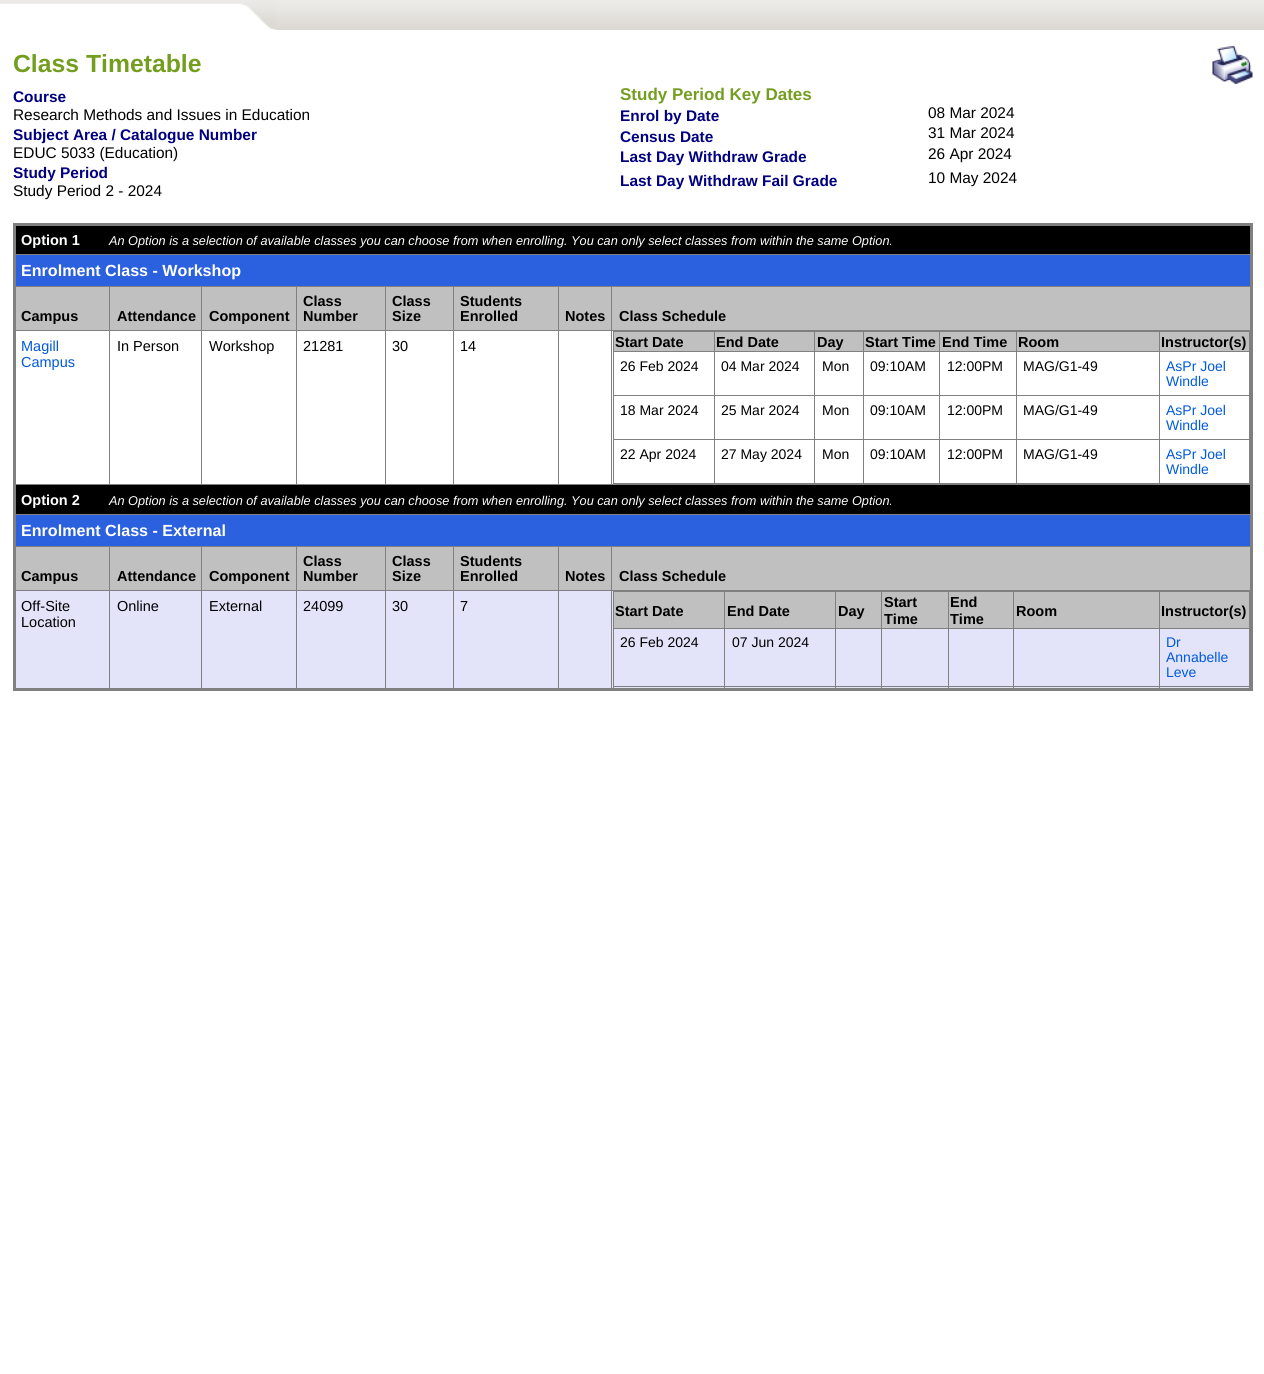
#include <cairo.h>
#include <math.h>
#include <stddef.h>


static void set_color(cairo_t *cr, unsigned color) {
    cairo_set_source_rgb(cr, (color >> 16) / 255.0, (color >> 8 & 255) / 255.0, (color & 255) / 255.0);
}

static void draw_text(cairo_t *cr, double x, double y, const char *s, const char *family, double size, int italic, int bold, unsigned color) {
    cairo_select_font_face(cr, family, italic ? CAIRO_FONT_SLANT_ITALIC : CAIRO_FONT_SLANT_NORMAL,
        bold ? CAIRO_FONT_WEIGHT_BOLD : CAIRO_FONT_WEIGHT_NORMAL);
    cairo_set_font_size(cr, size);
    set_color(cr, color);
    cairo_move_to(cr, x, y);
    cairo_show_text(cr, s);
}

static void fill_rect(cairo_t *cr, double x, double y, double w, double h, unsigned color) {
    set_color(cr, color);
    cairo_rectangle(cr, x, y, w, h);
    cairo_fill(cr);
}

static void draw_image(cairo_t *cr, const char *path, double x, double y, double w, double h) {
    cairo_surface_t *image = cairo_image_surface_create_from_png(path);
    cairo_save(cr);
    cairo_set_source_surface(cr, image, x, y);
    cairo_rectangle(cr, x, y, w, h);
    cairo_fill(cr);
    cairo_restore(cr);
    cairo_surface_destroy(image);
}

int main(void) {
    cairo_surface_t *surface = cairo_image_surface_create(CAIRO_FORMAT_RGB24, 1264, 1374);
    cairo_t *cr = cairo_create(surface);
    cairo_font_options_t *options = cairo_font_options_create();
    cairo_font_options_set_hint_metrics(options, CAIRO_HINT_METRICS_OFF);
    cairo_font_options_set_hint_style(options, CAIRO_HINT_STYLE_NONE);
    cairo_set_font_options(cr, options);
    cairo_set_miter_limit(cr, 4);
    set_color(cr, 0xFFFFFF);
    cairo_paint(cr);
    draw_image(cr, "assets/img1.png", 276, 0, 988, 30);
    draw_image(cr, "assets/img2.png", 0, 0, 277, 30);
    draw_text(cr, 13, 72, "Class Timetable", "Liberation Sans", 24.75, 0, 1, 0x749E20);
    draw_image(cr, "assets/img3.png", 1212, 45, 41, 40);
    draw_text(cr, 13, 102, "Course", "Liberation Sans", 15.4, 0, 1, 0x000080);
    draw_text(cr, 13, 120, "Research Methods and Issues in Education", "Liberation Sans", 15.4, 0, 0, 0x000000);
    draw_text(cr, 13, 140, "Subject Area / Catalogue Number", "Liberation Sans", 15.4, 0, 1, 0x000080);
    draw_text(cr, 13, 158, "EDUC 5033 (Education)", "Liberation Sans", 15.4, 0, 0, 0x000000);
    draw_text(cr, 13, 178, "Study Period", "Liberation Sans", 15.4, 0, 1, 0x000080);
    draw_text(cr, 13, 196, "Study Period 2 - 2024", "Liberation Sans", 15.4, 0, 0, 0x000000);
    draw_text(cr, 620, 100, "Study Period Key Dates", "Liberation Sans", 17, 0, 1, 0x749E20);
    draw_text(cr, 620, 121, "Enrol by Date", "Liberation Sans", 15.4, 0, 1, 0x000080);
    draw_text(cr, 928, 118, "08 Mar 2024", "Liberation Sans", 15.4, 0, 0, 0x000000);
    draw_text(cr, 620, 142, "Census Date", "Liberation Sans", 15.4, 0, 1, 0x000080);
    draw_text(cr, 928, 138, "31 Mar 2024", "Liberation Sans", 15.4, 0, 0, 0x000000);
    draw_text(cr, 620, 162, "Last Day Withdraw Grade", "Liberation Sans", 15.4, 0, 1, 0x000080);
    draw_text(cr, 928, 159, "26 Apr 2024", "Liberation Sans", 15.4, 0, 0, 0x000000);
    draw_text(cr, 620, 186, "Last Day Withdraw Fail Grade", "Liberation Sans", 15.4, 0, 1, 0x000080);
    draw_text(cr, 928, 183, "10 May 2024", "Liberation Sans", 15.4, 0, 0, 0x000000);
    fill_rect(cr, 13, 223, 1240, 3, 0x808080);
    fill_rect(cr, 14, 254, 1239, 1, 0x808080);
    fill_rect(cr, 14, 286, 1239, 1, 0x808080);
    fill_rect(cr, 14, 330, 1239, 1, 0x808080);
    fill_rect(cr, 14, 484, 1239, 1, 0x808080);
    fill_rect(cr, 14, 514, 1239, 1, 0x808080);
    fill_rect(cr, 14, 546, 1239, 1, 0x808080);
    fill_rect(cr, 14, 590, 1239, 1, 0x808080);
    fill_rect(cr, 1250, 223, 3, 467, 0x808080);
    fill_rect(cr, 16, 547, 1234, 43, 0xC0C0C0);
    fill_rect(cr, 16, 591, 1233, 97, 0xE3E4FA);
    fill_rect(cr, 109, 546, 1, 143, 0x808080);
    fill_rect(cr, 201, 546, 1, 143, 0x808080);
    fill_rect(cr, 296, 546, 1, 143, 0x808080);
    fill_rect(cr, 385, 546, 1, 143, 0x808080);
    fill_rect(cr, 453, 546, 1, 143, 0x808080);
    fill_rect(cr, 558, 546, 1, 143, 0x808080);
    fill_rect(cr, 611, 546, 1, 143, 0x808080);
    fill_rect(cr, 13, 688, 1240, 3, 0x808080);
    fill_rect(cr, 13, 223, 3, 467, 0x808080);
    fill_rect(cr, 16, 226, 1234, 28, 0x000000);
    draw_text(cr, 21, 245, "Option 1", "Liberation Sans", 14.5, 0, 1, 0xFFFFFF);
    draw_text(cr, 109, 245, "An Option is a selection of available classes you can choose from when enrolling. You can only select classes from within the same Option.", "Liberation Sans", 12.73, 1, 0, 0xFFFFFF);
    fill_rect(cr, 16, 255, 1234, 31, 0x2B60DE);
    draw_text(cr, 21, 276, "Enrolment Class - Workshop", "Liberation Sans", 16.1, 0, 1, 0xFFFFFF);
    fill_rect(cr, 16, 287, 1234, 43, 0xC0C0C0);
    draw_text(cr, 21, 321, "Campus", "Liberation Sans", 14.5, 0, 1, 0x000000);
    draw_text(cr, 117, 321, "Attendance", "Liberation Sans", 14.5, 0, 1, 0x000000);
    draw_text(cr, 209, 321, "Component", "Liberation Sans", 14.5, 0, 1, 0x000000);
    draw_text(cr, 303, 306, "Class", "Liberation Sans", 14.5, 0, 1, 0x000000);
    draw_text(cr, 303, 321, "Number", "Liberation Sans", 14.5, 0, 1, 0x000000);
    draw_text(cr, 392, 306, "Class", "Liberation Sans", 14.5, 0, 1, 0x000000);
    draw_text(cr, 392, 321, "Size", "Liberation Sans", 14.5, 0, 1, 0x000000);
    draw_text(cr, 460, 306, "Students", "Liberation Sans", 14.5, 0, 1, 0x000000);
    draw_text(cr, 460, 321, "Enrolled", "Liberation Sans", 14.5, 0, 1, 0x000000);
    draw_text(cr, 565, 321, "Notes", "Liberation Sans", 14.5, 0, 1, 0x000000);
    draw_text(cr, 619, 321, "Class Schedule", "Liberation Sans", 14.5, 0, 1, 0x000000);
    draw_text(cr, 21, 351, "Magill", "Liberation Sans", 14.5, 0, 0, 0x005ADD);
    draw_text(cr, 21, 367, "Campus", "Liberation Sans", 14.5, 0, 0, 0x005ADD);
    fill_rect(cr, 109, 286, 1, 199, 0x808080);
    draw_text(cr, 117, 351, "In Person", "Liberation Sans", 14.5, 0, 0, 0x000000);
    fill_rect(cr, 201, 286, 1, 199, 0x808080);
    draw_text(cr, 209, 351, "Workshop", "Liberation Sans", 14.5, 0, 0, 0x000000);
    fill_rect(cr, 296, 286, 1, 199, 0x808080);
    draw_text(cr, 303, 351, "21281", "Liberation Sans", 14.5, 0, 0, 0x000000);
    fill_rect(cr, 385, 286, 1, 199, 0x808080);
    draw_text(cr, 392, 351, "30", "Liberation Sans", 14.5, 0, 0, 0x000000);
    fill_rect(cr, 453, 286, 1, 199, 0x808080);
    draw_text(cr, 460, 351, "14", "Liberation Sans", 14.5, 0, 0, 0x000000);
    fill_rect(cr, 558, 286, 1, 199, 0x808080);
    fill_rect(cr, 611, 286, 1, 199, 0x808080);
    fill_rect(cr, 613, 331, 637, 1, 0x808080);
    fill_rect(cr, 1249, 331, 1, 153, 0x808080);
    fill_rect(cr, 613, 483, 637, 1, 0x808080);
    fill_rect(cr, 613, 331, 1, 153, 0x808080);
    fill_rect(cr, 614, 332, 635, 19, 0xC0C0C0);
    draw_text(cr, 615, 347, "Start Date", "Liberation Sans", 14.5, 0, 1, 0x000000);
    draw_text(cr, 716, 347, "End Date", "Liberation Sans", 14.5, 0, 1, 0x000000);
    draw_text(cr, 817, 347, "Day", "Liberation Sans", 14.5, 0, 1, 0x000000);
    draw_text(cr, 865, 347, "Start Time", "Liberation Sans", 14.5, 0, 1, 0x000000);
    draw_text(cr, 942, 347, "End Time", "Liberation Sans", 14.5, 0, 1, 0x000000);
    draw_text(cr, 1018, 347, "Room", "Liberation Sans", 14.5, 0, 1, 0x000000);
    draw_text(cr, 1161, 347, "Instructor(s)", "Liberation Sans", 14.5, 0, 1, 0x000000);
    fill_rect(cr, 613, 351, 637, 1, 0x808080);
    draw_text(cr, 620, 371, "26 Feb 2024", "Liberation Sans", 14, 0, 0, 0x000000);
    draw_text(cr, 721, 371, "04 Mar 2024", "Liberation Sans", 14, 0, 0, 0x000000);
    draw_text(cr, 822, 371, "Mon", "Liberation Sans", 14, 0, 0, 0x000000);
    draw_text(cr, 870, 371, "09:10AM", "Liberation Sans", 14, 0, 0, 0x000000);
    draw_text(cr, 947, 371, "12:00PM", "Liberation Sans", 14, 0, 0, 0x000000);
    draw_text(cr, 1023, 371, "MAG/G1-49", "Liberation Sans", 14, 0, 0, 0x000000);
    draw_text(cr, 1166, 371, "AsPr Joel", "Liberation Sans", 14, 0, 0, 0x005ADD);
    draw_text(cr, 1166, 386, "Windle", "Liberation Sans", 14, 0, 0, 0x005ADD);
    fill_rect(cr, 613, 395, 637, 1, 0x808080);
    draw_text(cr, 620, 415, "18 Mar 2024", "Liberation Sans", 14, 0, 0, 0x000000);
    draw_text(cr, 721, 415, "25 Mar 2024", "Liberation Sans", 14, 0, 0, 0x000000);
    draw_text(cr, 822, 415, "Mon", "Liberation Sans", 14, 0, 0, 0x000000);
    draw_text(cr, 870, 415, "09:10AM", "Liberation Sans", 14, 0, 0, 0x000000);
    draw_text(cr, 947, 415, "12:00PM", "Liberation Sans", 14, 0, 0, 0x000000);
    draw_text(cr, 1023, 415, "MAG/G1-49", "Liberation Sans", 14, 0, 0, 0x000000);
    draw_text(cr, 1166, 415, "AsPr Joel", "Liberation Sans", 14, 0, 0, 0x005ADD);
    draw_text(cr, 1166, 430, "Windle", "Liberation Sans", 14, 0, 0, 0x005ADD);
    fill_rect(cr, 613, 439, 637, 1, 0x808080);
    draw_text(cr, 620, 459, "22 Apr 2024", "Liberation Sans", 14, 0, 0, 0x000000);
    fill_rect(cr, 714, 331, 1, 153, 0x808080);
    draw_text(cr, 721, 459, "27 May 2024", "Liberation Sans", 14, 0, 0, 0x000000);
    fill_rect(cr, 814, 331, 1, 153, 0x808080);
    draw_text(cr, 822, 459, "Mon", "Liberation Sans", 14, 0, 0, 0x000000);
    fill_rect(cr, 863, 331, 1, 153, 0x808080);
    draw_text(cr, 870, 459, "09:10AM", "Liberation Sans", 14, 0, 0, 0x000000);
    fill_rect(cr, 939, 331, 1, 153, 0x808080);
    draw_text(cr, 947, 459, "12:00PM", "Liberation Sans", 14, 0, 0, 0x000000);
    fill_rect(cr, 1016, 331, 1, 153, 0x808080);
    draw_text(cr, 1023, 459, "MAG/G1-49", "Liberation Sans", 14, 0, 0, 0x000000);
    fill_rect(cr, 1159, 331, 1, 153, 0x808080);
    draw_text(cr, 1166, 459, "AsPr Joel", "Liberation Sans", 14, 0, 0, 0x005ADD);
    draw_text(cr, 1166, 474, "Windle", "Liberation Sans", 14, 0, 0, 0x005ADD);
    fill_rect(cr, 16, 485, 1234, 29, 0x000000);
    draw_text(cr, 21, 505, "Option 2", "Liberation Sans", 14.5, 0, 1, 0xFFFFFF);
    draw_text(cr, 109, 505, "An Option is a selection of available classes you can choose from when enrolling. You can only select classes from within the same Option.", "Liberation Sans", 12.73, 1, 0, 0xFFFFFF);
    fill_rect(cr, 16, 515, 1234, 31, 0x2B60DE);
    draw_text(cr, 21, 536, "Enrolment Class - External", "Liberation Sans", 16.1, 0, 1, 0xFFFFFF);
    draw_text(cr, 21, 581, "Campus", "Liberation Sans", 14.5, 0, 1, 0x000000);
    draw_text(cr, 117, 581, "Attendance", "Liberation Sans", 14.5, 0, 1, 0x000000);
    draw_text(cr, 209, 581, "Component", "Liberation Sans", 14.5, 0, 1, 0x000000);
    draw_text(cr, 303, 566, "Class", "Liberation Sans", 14.5, 0, 1, 0x000000);
    draw_text(cr, 303, 581, "Number", "Liberation Sans", 14.5, 0, 1, 0x000000);
    draw_text(cr, 392, 566, "Class", "Liberation Sans", 14.5, 0, 1, 0x000000);
    draw_text(cr, 392, 581, "Size", "Liberation Sans", 14.5, 0, 1, 0x000000);
    draw_text(cr, 460, 566, "Students", "Liberation Sans", 14.5, 0, 1, 0x000000);
    draw_text(cr, 460, 581, "Enrolled", "Liberation Sans", 14.5, 0, 1, 0x000000);
    draw_text(cr, 565, 581, "Notes", "Liberation Sans", 14.5, 0, 1, 0x000000);
    draw_text(cr, 619, 581, "Class Schedule", "Liberation Sans", 14.5, 0, 1, 0x000000);
    draw_text(cr, 21, 611, "Off-Site", "Liberation Sans", 14.5, 0, 0, 0x000000);
    draw_text(cr, 21, 627, "Location", "Liberation Sans", 14.5, 0, 0, 0x000000);
    draw_text(cr, 117, 611, "Online", "Liberation Sans", 14.5, 0, 0, 0x000000);
    draw_text(cr, 209, 611, "External", "Liberation Sans", 14.5, 0, 0, 0x000000);
    draw_text(cr, 303, 611, "24099", "Liberation Sans", 14.5, 0, 0, 0x000000);
    draw_text(cr, 392, 611, "30", "Liberation Sans", 14.5, 0, 0, 0x000000);
    draw_text(cr, 460, 611, "7", "Liberation Sans", 14.5, 0, 0, 0x000000);
    fill_rect(cr, 613, 591, 637, 1, 0x808080);
    fill_rect(cr, 1249, 591, 1, 97, 0x808080);
    fill_rect(cr, 613, 686, 637, 1, 0x808080);
    fill_rect(cr, 613, 591, 1, 97, 0x808080);
    fill_rect(cr, 614, 592, 635, 36, 0xC0C0C0);
    draw_text(cr, 615, 616, "Start Date", "Liberation Sans", 14.5, 0, 1, 0x000000);
    draw_text(cr, 727, 616, "End Date", "Liberation Sans", 14.5, 0, 1, 0x000000);
    draw_text(cr, 838, 616, "Day", "Liberation Sans", 14.5, 0, 1, 0x000000);
    draw_text(cr, 884, 607, "Start", "Liberation Sans", 14.5, 0, 1, 0x000000);
    draw_text(cr, 884, 624, "Time", "Liberation Sans", 14.5, 0, 1, 0x000000);
    draw_text(cr, 950, 607, "End", "Liberation Sans", 14.5, 0, 1, 0x000000);
    draw_text(cr, 950, 624, "Time", "Liberation Sans", 14.5, 0, 1, 0x000000);
    draw_text(cr, 1016, 616, "Room", "Liberation Sans", 14.5, 0, 1, 0x000000);
    draw_text(cr, 1161, 616, "Instructor(s)", "Liberation Sans", 14.5, 0, 1, 0x000000);
    fill_rect(cr, 613, 628, 637, 1, 0x808080);
    draw_text(cr, 620, 647, "26 Feb 2024", "Liberation Sans", 14, 0, 0, 0x000000);
    fill_rect(cr, 724, 591, 1, 97, 0x808080);
    draw_text(cr, 732, 647, "07 Jun 2024", "Liberation Sans", 14, 0, 0, 0x000000);
    fill_rect(cr, 835, 591, 1, 97, 0x808080);
    fill_rect(cr, 881, 591, 1, 97, 0x808080);
    fill_rect(cr, 948, 591, 1, 97, 0x808080);
    fill_rect(cr, 1013, 591, 1, 97, 0x808080);
    fill_rect(cr, 1159, 591, 1, 97, 0x808080);
    draw_text(cr, 1166, 647, "Dr", "Liberation Sans", 14, 0, 0, 0x005ADD);
    draw_text(cr, 1166, 662, "Annabelle", "Liberation Sans", 14, 0, 0, 0x005ADD);
    draw_text(cr, 1166, 677, "Leve", "Liberation Sans", 14, 0, 0, 0x005ADD);
    cairo_surface_write_to_png(surface, "output.png");
    cairo_font_options_destroy(options);
    cairo_destroy(cr);
    cairo_surface_destroy(surface);
    return 0;
}
